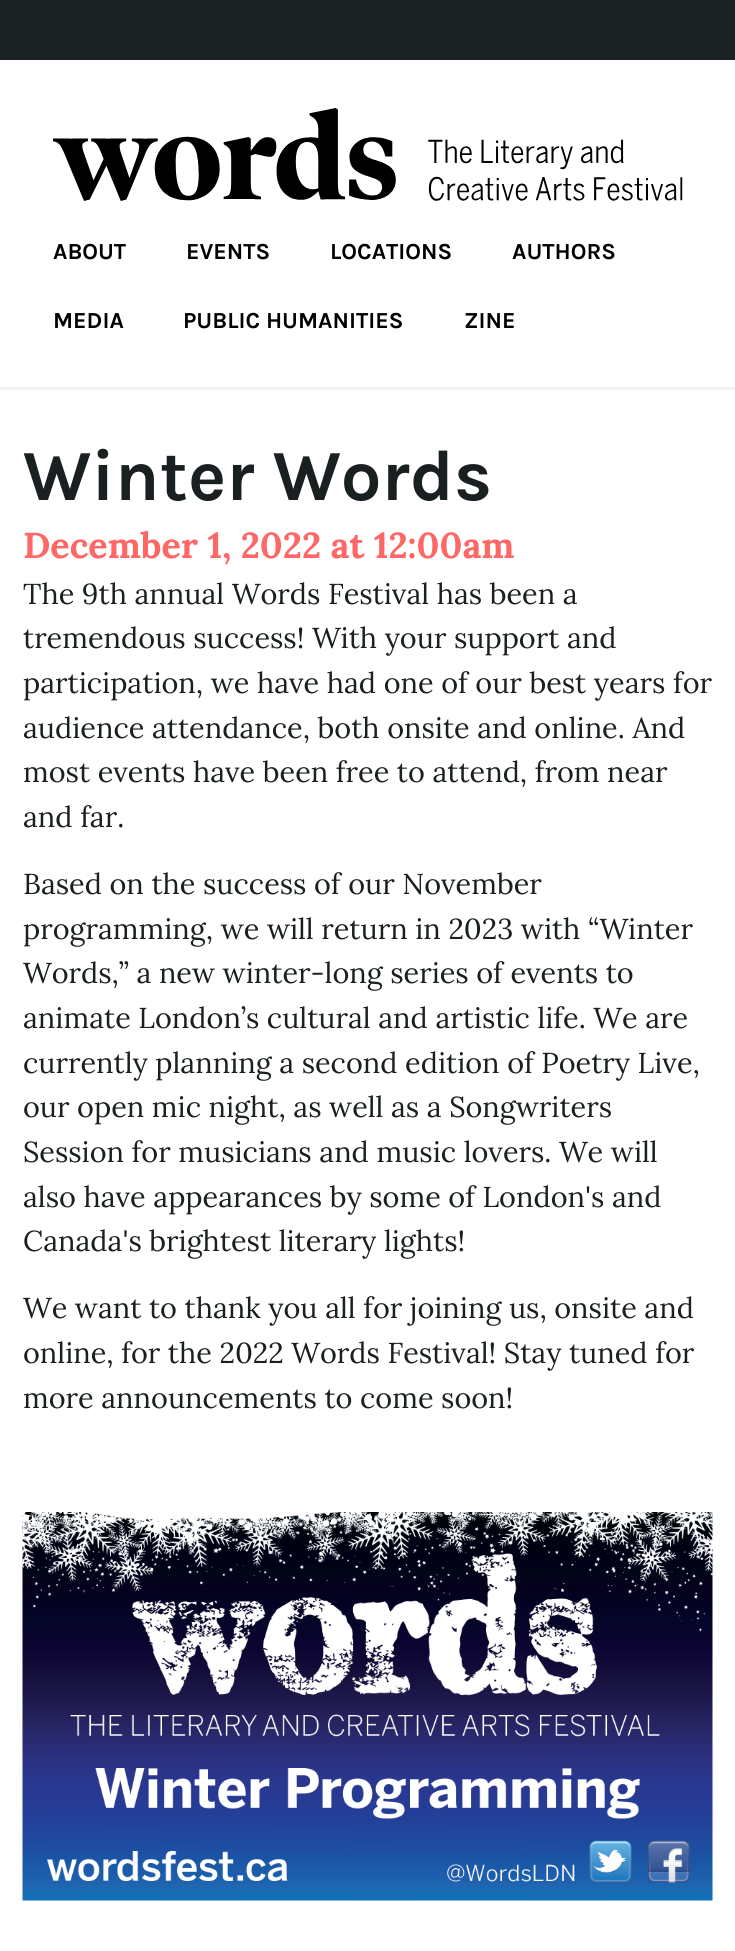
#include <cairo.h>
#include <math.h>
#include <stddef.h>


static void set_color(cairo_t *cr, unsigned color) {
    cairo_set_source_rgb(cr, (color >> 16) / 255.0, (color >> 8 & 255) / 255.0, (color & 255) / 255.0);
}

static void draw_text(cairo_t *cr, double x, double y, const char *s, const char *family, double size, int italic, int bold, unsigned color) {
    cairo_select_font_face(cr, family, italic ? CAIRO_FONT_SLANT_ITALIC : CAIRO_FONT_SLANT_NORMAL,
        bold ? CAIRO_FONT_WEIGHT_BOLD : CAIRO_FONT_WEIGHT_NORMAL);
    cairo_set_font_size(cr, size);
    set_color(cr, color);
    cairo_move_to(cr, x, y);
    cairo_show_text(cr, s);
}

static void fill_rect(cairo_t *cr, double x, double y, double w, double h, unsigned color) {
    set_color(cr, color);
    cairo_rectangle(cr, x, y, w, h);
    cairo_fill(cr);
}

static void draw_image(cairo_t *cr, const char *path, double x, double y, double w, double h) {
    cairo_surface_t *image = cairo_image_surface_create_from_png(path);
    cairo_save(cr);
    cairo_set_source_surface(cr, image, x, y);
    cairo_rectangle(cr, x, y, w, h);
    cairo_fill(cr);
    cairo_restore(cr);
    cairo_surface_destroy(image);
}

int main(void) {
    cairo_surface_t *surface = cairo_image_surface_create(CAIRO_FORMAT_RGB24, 735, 1951);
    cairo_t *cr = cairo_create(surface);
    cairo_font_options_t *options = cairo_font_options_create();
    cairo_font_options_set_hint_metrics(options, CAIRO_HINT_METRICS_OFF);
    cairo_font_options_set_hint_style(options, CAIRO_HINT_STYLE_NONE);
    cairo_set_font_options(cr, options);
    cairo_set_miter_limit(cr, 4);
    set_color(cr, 0xFFFFFF);
    cairo_paint(cr);
    fill_rect(cr, 0, 0, 735, 60, 0x1B2223);
    draw_image(cr, "assets/img1.png", 53, 108, 630, 93);
    draw_text(cr, 53, 259, "ABOUT", "Karla", 23, 0, 1, 0x000000);
    draw_text(cr, 186, 259, "EVENTS", "Karla", 23, 0, 1, 0x000000);
    draw_text(cr, 330, 259, "LOCATIONS", "Karla", 23, 0, 1, 0x000000);
    draw_text(cr, 512, 259, "AUTHORS", "Karla", 23, 0, 1, 0x000000);
    draw_text(cr, 53, 328, "MEDIA", "Karla", 23, 0, 1, 0x000000);
    draw_text(cr, 183, 328, "PUBLIC HUMANITIES", "Karla", 23, 0, 1, 0x000000);
    draw_text(cr, 464, 328, "ZINE", "Karla", 23, 0, 1, 0x000000);
    fill_rect(cr, 0, 387, 735, 3, 0xF2F2F2);
    draw_text(cr, 23, 500, "Winter Words", "Karla", 72, 0, 1, 0x1A2021);
    draw_text(cr, 23, 558, "December 1, 2022 at 12:00am", "Lora", 36, 0, 1, 0xFF6666);
    draw_text(cr, 23, 604, "The 9th annual Words Festival has been a", "Lora", 28.8, 0, 0, 0x1A2021);
    draw_text(cr, 23, 648, "tremendous success! With your support and", "Lora", 28.8, 0, 0, 0x1A2021);
    draw_text(cr, 23, 693, "participation, we have had one of our best years for", "Lora", 28.8, 0, 0, 0x1A2021);
    draw_text(cr, 23, 738, "audience attendance, both onsite and online. And", "Lora", 28.8, 0, 0, 0x1A2021);
    draw_text(cr, 23, 782, "most events have been free to attend, from near", "Lora", 28.8, 0, 0, 0x1A2021);
    draw_text(cr, 23, 827, "and far.", "Lora", 28.8, 0, 0, 0x1A2021);
    draw_text(cr, 23, 894, "Based on the success of our November", "Lora", 28.8, 0, 0, 0x1A2021);
    draw_text(cr, 23, 939, "programming, we will return in 2023 with “Winter", "Lora", 28.8, 0, 0, 0x1A2021);
    draw_text(cr, 23, 983, "Words,” a new winter-long series of events to", "Lora", 28.8, 0, 0, 0x1A2021);
    draw_text(cr, 23, 1028, "animate London’s cultural and artistic life. We are", "Lora", 28.8, 0, 0, 0x1A2021);
    draw_text(cr, 23, 1073, "currently planning a second edition of Poetry Live,", "Lora", 28.8, 0, 0, 0x1A2021);
    draw_text(cr, 23, 1117, "our open mic night, as well as a Songwriters", "Lora", 28.8, 0, 0, 0x1A2021);
    draw_text(cr, 23, 1162, "Session for musicians and music lovers. We will", "Lora", 28.8, 0, 0, 0x1A2021);
    draw_text(cr, 23, 1207, "also have appearances by some of London's and", "Lora", 28.8, 0, 0, 0x1A2021);
    draw_text(cr, 23, 1251, "Canada's brightest literary lights!", "Lora", 28.8, 0, 0, 0x1A2021);
    draw_text(cr, 23, 1318, "We want to thank you all for joining us, onsite and", "Lora", 28.8, 0, 0, 0x1A2021);
    draw_text(cr, 23, 1363, "online, for the 2022 Words Festival! Stay tuned for", "Lora", 28.8, 0, 0, 0x1A2021);
    draw_text(cr, 23, 1408, "more announcements to come soon!", "Lora", 28.8, 0, 0, 0x1A2021);
    draw_image(cr, "assets/img2.png", 22, 1512, 691, 389);
    cairo_surface_write_to_png(surface, "output.png");
    cairo_font_options_destroy(options);
    cairo_destroy(cr);
    cairo_surface_destroy(surface);
    return 0;
}
